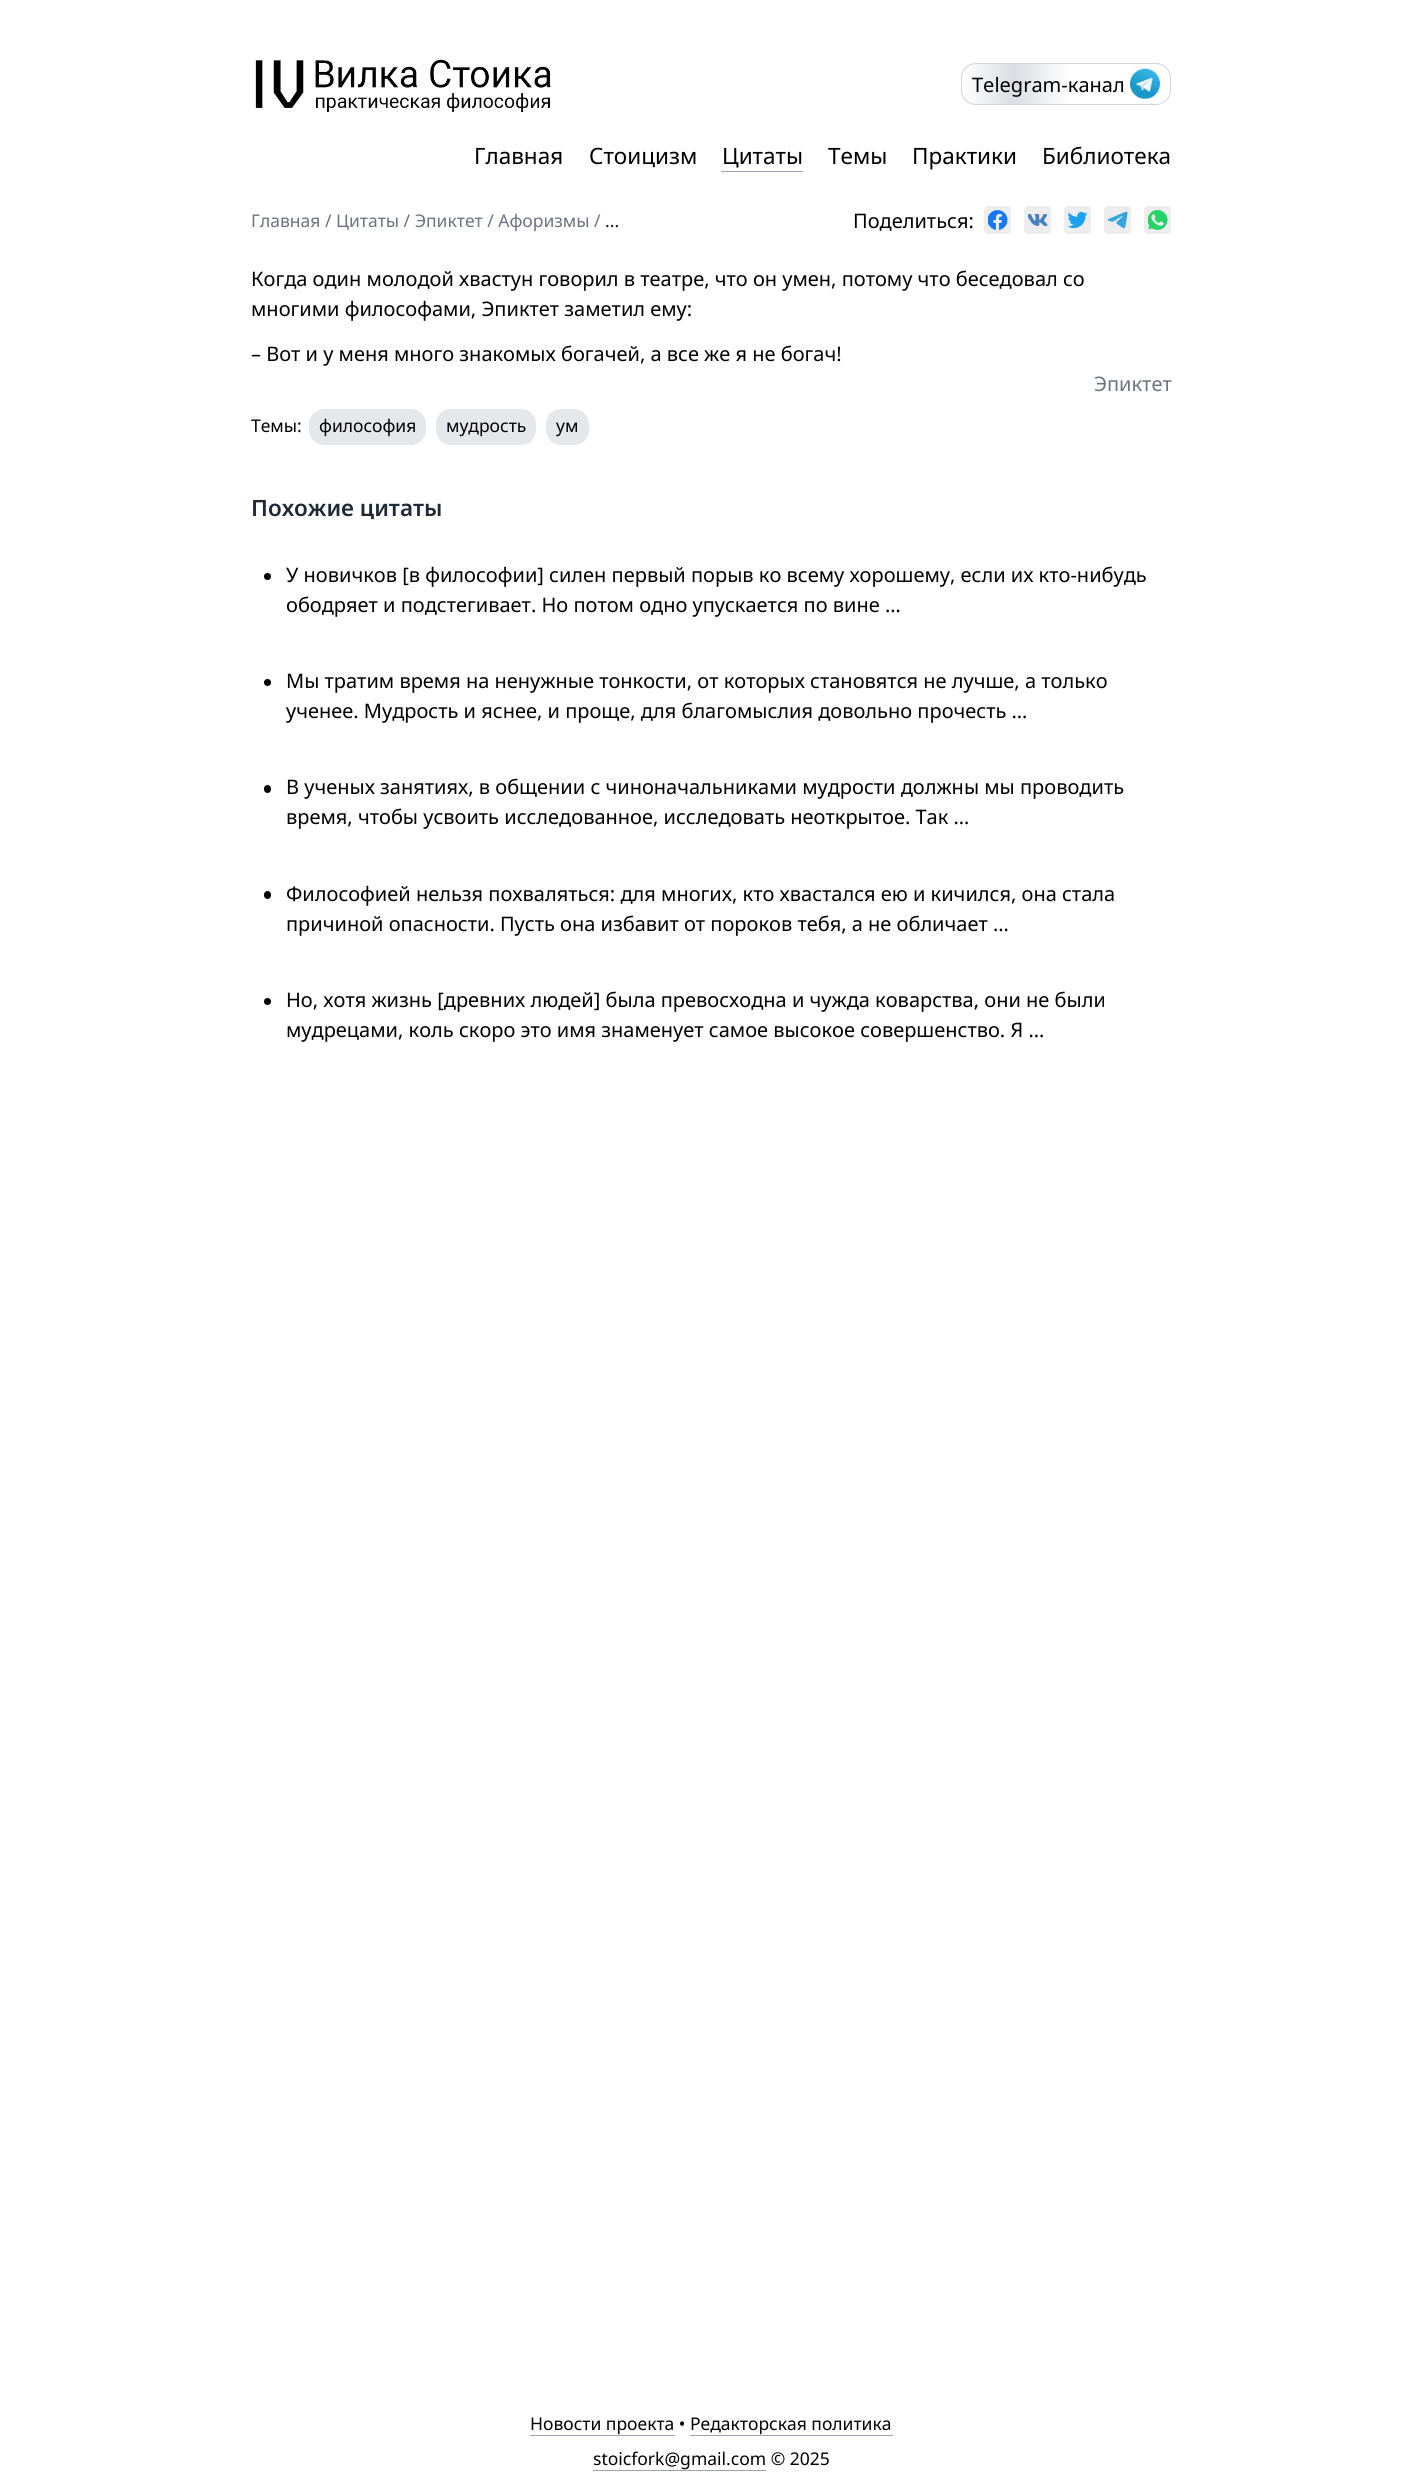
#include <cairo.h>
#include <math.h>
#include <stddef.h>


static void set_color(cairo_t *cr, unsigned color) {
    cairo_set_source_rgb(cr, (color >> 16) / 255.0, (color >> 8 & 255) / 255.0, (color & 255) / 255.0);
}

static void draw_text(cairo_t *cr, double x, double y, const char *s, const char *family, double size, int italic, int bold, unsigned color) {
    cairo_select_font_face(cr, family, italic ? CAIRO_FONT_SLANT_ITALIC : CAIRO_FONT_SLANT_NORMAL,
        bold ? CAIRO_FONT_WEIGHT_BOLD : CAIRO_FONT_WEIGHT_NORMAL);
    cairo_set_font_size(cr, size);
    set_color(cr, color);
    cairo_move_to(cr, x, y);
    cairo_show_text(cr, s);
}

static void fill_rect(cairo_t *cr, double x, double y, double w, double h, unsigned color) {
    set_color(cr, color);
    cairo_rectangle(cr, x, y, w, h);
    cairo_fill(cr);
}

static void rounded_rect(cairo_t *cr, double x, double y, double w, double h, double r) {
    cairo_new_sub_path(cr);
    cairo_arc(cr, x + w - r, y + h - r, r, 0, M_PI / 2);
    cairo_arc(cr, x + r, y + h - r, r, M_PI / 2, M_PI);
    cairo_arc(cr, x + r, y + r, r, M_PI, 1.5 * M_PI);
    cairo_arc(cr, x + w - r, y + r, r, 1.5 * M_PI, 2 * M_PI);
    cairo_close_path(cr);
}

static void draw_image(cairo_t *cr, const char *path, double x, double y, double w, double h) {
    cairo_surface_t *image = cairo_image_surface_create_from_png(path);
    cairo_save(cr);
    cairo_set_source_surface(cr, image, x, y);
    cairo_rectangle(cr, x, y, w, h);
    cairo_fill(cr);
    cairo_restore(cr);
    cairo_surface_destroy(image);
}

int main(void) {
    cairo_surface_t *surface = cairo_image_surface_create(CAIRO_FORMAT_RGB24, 1422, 2491);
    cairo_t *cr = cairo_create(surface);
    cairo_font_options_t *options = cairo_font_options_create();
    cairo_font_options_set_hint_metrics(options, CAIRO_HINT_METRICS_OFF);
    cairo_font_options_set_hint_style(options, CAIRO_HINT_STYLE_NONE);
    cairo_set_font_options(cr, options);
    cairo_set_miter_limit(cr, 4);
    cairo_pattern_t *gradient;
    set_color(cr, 0xFFFFFF);
    cairo_paint(cr);
    draw_image(cr, "assets/img1.png", 255, 59, 296, 53);
    cairo_save(cr);
    rounded_rect(cr, 961, 63, 210, 42, 15);
    cairo_clip(cr);
    gradient = cairo_pattern_create_linear(1170, 84, 963, 84);
    cairo_pattern_add_color_stop_rgba(gradient, 0.48, 1, 1, 1, 1);
    cairo_pattern_add_color_stop_rgba(gradient, 0.76, 0.855, 0.867, 0.886, 1);
    cairo_pattern_add_color_stop_rgba(gradient, 1, 1, 1, 1, 1);
    cairo_set_source(cr, gradient);
    cairo_pattern_destroy(gradient);
    cairo_rectangle(cr, 963, 64, 207, 40);
    cairo_fill(cr);
    cairo_restore(cr);
    rounded_rect(cr, 961.5, 63.5, 209, 41, 14.5);
    set_color(cr, 0xD1D5DB);
    cairo_set_line_width(cr, 1);
    cairo_stroke(cr);
    draw_text(cr, 972, 92, "Telegram-канал", "Noto Sans", 20, 0, 0, 0x000000);
    draw_image(cr, "assets/img2.png", 1130, 68, 30, 31);
    draw_text(cr, 474, 164, "Главная", "Noto Sans", 22.5, 0, 0, 0x000000);
    draw_text(cr, 589, 164, "Стоицизм", "Noto Sans", 22.5, 0, 0, 0x000000);
    draw_text(cr, 722, 164, "Цитаты", "Noto Sans", 22.5, 0, 0, 0x000000);
    fill_rect(cr, 721, 171, 82, 1, 0x9CA3AF);
    draw_text(cr, 828, 164, "Темы", "Noto Sans", 22.5, 0, 0, 0x000000);
    draw_text(cr, 912, 164, "Практики", "Noto Sans", 22.5, 0, 0, 0x000000);
    draw_text(cr, 1042, 164, "Библиотека", "Noto Sans", 22.5, 0, 0, 0x000000);
    draw_text(cr, 251, 227, "Главная / Цитаты / Эпиктет / Афоризмы /", "Noto Sans", 17.5, 0, 0, 0x6B7280);
    draw_text(cr, 605, 227, "...", "Noto Sans", 17.5, 0, 0, 0x111827);
    draw_text(cr, 853, 228, "Поделиться:", "Noto Sans", 20, 0, 0, 0x000000);
    set_color(cr, 0xEDEDED);
    rounded_rect(cr, 984, 206, 27, 28, 4);
    cairo_fill(cr);
    draw_image(cr, "assets/img3.png", 988, 210, 20, 20);
    rounded_rect(cr, 1024, 206, 27, 28, 4);
    cairo_fill(cr);
    draw_image(cr, "assets/img4.png", 1028, 214, 20, 12);
    rounded_rect(cr, 1064, 206, 27, 28, 4);
    cairo_fill(cr);
    draw_image(cr, "assets/img5.png", 1068, 211, 20, 18);
    rounded_rect(cr, 1104, 206, 27, 28, 4);
    cairo_fill(cr);
    draw_image(cr, "assets/img6.png", 1108, 211, 20, 18);
    rounded_rect(cr, 1144, 206, 27, 28, 4);
    cairo_fill(cr);
    draw_image(cr, "assets/img7.png", 1148, 210, 20, 20);
    draw_text(cr, 251, 286, "Когда один молодой хвастун говорил в театре, что он умен, потому что беседовал со", "Noto Sans", 20, 0, 0, 0x000000);
    draw_text(cr, 251, 316, "многими философами, Эпиктет заметил ему:", "Noto Sans", 20, 0, 0, 0x000000);
    draw_text(cr, 251, 361, "– Вот и у меня много знакомых богачей, а все же я не богач!", "Noto Sans", 20, 0, 0, 0x000000);
    draw_text(cr, 1094, 391, "Эпиктет", "Noto Sans", 20, 0, 0, 0x6B7280);
    draw_text(cr, 251, 432, "Темы:", "Noto Sans", 17.5, 0, 0, 0x000000);
    set_color(cr, 0xE5E7EB);
    rounded_rect(cr, 309, 409, 117, 36, 15);
    cairo_fill(cr);
    draw_text(cr, 319, 432, "философия", "Noto Sans", 17.5, 0, 0, 0x000000);
    set_color(cr, 0xE5E7EB);
    rounded_rect(cr, 436, 409, 100, 36, 15);
    cairo_fill(cr);
    draw_text(cr, 446, 432, "мудрость", "Noto Sans", 17.5, 0, 0, 0x000000);
    set_color(cr, 0xE5E7EB);
    rounded_rect(cr, 546, 409, 43, 36, 15);
    cairo_fill(cr);
    draw_text(cr, 556, 432, "ум", "Noto Sans", 17.5, 0, 0, 0x000000);
    draw_text(cr, 251, 516, "Похожие цитаты", "Noto Sans SemiBold", 22.5, 0, 0, 0x1F2937);
    set_color(cr, 0x000000);
    cairo_new_path(cr);
    cairo_arc(cr, 267.5, 576.5, 3.5, 0, 2 * M_PI);
    cairo_fill(cr);
    draw_text(cr, 286, 582, "У новичков [в философии] силен первый порыв ко всему хорошему, если их кто-нибудь", "Noto Sans", 20, 0, 0, 0x000000);
    draw_text(cr, 286, 612, "ободряет и подстегивает. Но потом одно упускается по вине …", "Noto Sans", 20, 0, 0, 0x000000);
    cairo_new_path(cr);
    cairo_arc(cr, 267.5, 682.5, 3.5, 0, 2 * M_PI);
    cairo_fill(cr);
    draw_text(cr, 286, 688, "Мы тратим время на ненужные тонкости, от которых становятся не лучше, а только", "Noto Sans", 20, 0, 0, 0x000000);
    draw_text(cr, 286, 718, "ученее. Мудрость и яснее, и проще, для благомыслия довольно прочесть …", "Noto Sans", 20, 0, 0, 0x000000);
    rounded_rect(cr, 264, 785, 7, 8, 3.5);
    cairo_fill(cr);
    draw_text(cr, 286, 794, "В ученых занятиях, в общении с чиноначальниками мудрости должны мы проводить", "Noto Sans", 20, 0, 0, 0x000000);
    draw_text(cr, 286, 824, "время, чтобы усвоить исследованное, исследовать неоткрытое. Так …", "Noto Sans", 20, 0, 0, 0x000000);
    rounded_rect(cr, 264, 891, 7, 8, 3.5);
    cairo_fill(cr);
    draw_text(cr, 286, 901, "Философией нельзя похваляться: для многих, кто хвастался ею и кичился, она стала", "Noto Sans", 20, 0, 0, 0x000000);
    draw_text(cr, 286, 931, "причиной опасности. Пусть она избавит от пороков тебя, а не обличает …", "Noto Sans", 20, 0, 0, 0x000000);
    cairo_new_path(cr);
    cairo_arc(cr, 267.5, 1001.5, 3.5, 0, 2 * M_PI);
    cairo_fill(cr);
    draw_text(cr, 286, 1007, "Но, хотя жизнь [древних людей] была превосходна и чужда коварства, они не были", "Noto Sans", 20, 0, 0, 0x000000);
    draw_text(cr, 286, 1037, "мудрецами, коль скоро это имя знаменует самое высокое совершенство. Я …", "Noto Sans", 20, 0, 0, 0x000000);
    draw_text(cr, 530, 2430, "Новости проекта • Редакторская политика", "Noto Sans", 17.5, 0, 0, 0x000000);
    fill_rect(cr, 530, 2435, 145, 1, 0x9CA3AF);
    fill_rect(cr, 690, 2435, 203, 1, 0x9CA3AF);
    draw_text(cr, 593, 2465, "stoicfork@gmail.com © 2025", "Noto Sans", 17.5, 0, 0, 0x000000);
    fill_rect(cr, 593, 2470, 173, 1, 0x9CA3AF);
    cairo_surface_write_to_png(surface, "output.png");
    cairo_font_options_destroy(options);
    cairo_destroy(cr);
    cairo_surface_destroy(surface);
    return 0;
}
